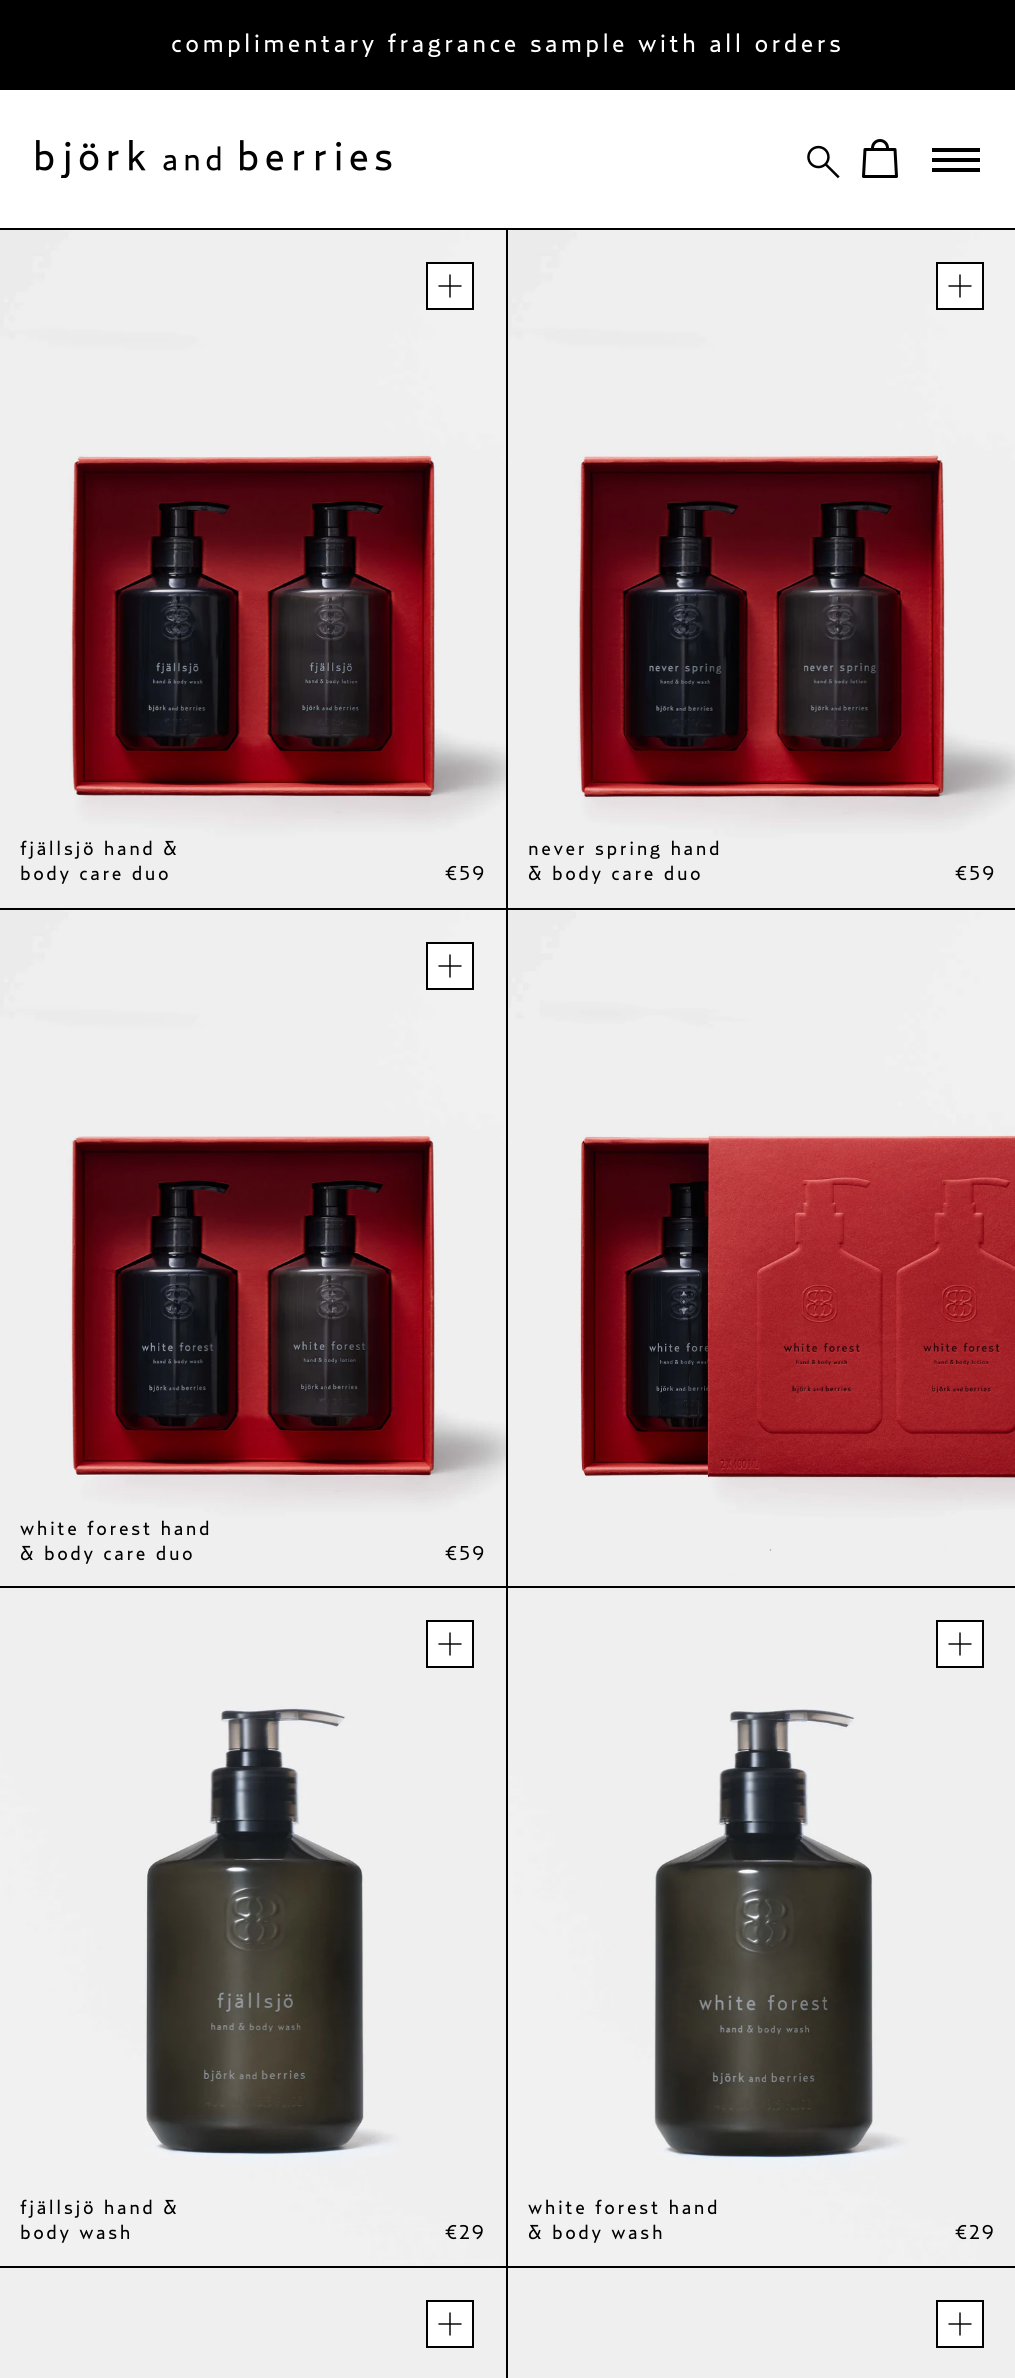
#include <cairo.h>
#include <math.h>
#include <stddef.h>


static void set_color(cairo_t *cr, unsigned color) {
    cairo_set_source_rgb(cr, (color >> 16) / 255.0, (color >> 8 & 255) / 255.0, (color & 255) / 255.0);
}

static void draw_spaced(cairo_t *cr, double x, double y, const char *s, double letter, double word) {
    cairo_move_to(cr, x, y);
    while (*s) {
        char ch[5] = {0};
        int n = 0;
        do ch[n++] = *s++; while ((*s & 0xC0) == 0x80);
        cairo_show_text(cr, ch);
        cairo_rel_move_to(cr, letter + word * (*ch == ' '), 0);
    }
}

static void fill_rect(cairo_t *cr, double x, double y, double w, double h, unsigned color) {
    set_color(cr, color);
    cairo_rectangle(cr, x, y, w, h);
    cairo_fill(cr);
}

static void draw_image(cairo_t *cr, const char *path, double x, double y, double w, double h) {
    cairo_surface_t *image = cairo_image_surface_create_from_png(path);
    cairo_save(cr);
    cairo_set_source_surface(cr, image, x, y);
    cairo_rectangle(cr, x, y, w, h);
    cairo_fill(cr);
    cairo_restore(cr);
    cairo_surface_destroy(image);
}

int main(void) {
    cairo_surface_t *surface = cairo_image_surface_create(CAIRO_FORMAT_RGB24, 1015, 2378);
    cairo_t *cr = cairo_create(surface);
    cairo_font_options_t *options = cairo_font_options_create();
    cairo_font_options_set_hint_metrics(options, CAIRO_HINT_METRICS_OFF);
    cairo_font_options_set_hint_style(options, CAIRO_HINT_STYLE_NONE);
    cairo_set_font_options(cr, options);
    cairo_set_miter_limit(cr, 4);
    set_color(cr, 0xFFFFFF);
    cairo_paint(cr);
    fill_rect(cr, 0, 0, 1015, 90, 0x000000);
    cairo_select_font_face(cr, "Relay", CAIRO_FONT_SLANT_NORMAL, CAIRO_FONT_WEIGHT_NORMAL);
    cairo_set_font_size(cr, 26);
    set_color(cr, 0xFFFFFF);
    draw_spaced(cr, 171, 52, "complimentary fragrance sample with all orders", 3.25, 0);
    draw_image(cr, "assets/img1.png", 36, 140, 356, 38);
    draw_image(cr, "assets/img2.png", 807, 145, 33, 34);
    draw_image(cr, "assets/img3.png", 862, 139, 36, 39);
    fill_rect(cr, 932, 158, 48, 4, 0x000000);
    fill_rect(cr, 932, 148, 48, 4, 0x000000);
    fill_rect(cr, 932, 168, 48, 4, 0x000000);
    fill_rect(cr, 0, 228, 1015, 2, 0x000000);
    fill_rect(cr, 506, 230, 2, 1356, 0x000000);
    fill_rect(cr, 0, 908, 1015, 2, 0x000000);
    draw_image(cr, "assets/img4.png", 0, 230, 506, 678);
    set_color(cr, 0xFFFFFF);
    cairo_rectangle(cr, 427, 263, 46, 46);
    cairo_fill_preserve(cr);
    set_color(cr, 0x000000);
    cairo_stroke(cr);
    draw_image(cr, "assets/img5.png", 438, 274, 24, 24);
    cairo_set_font_size(cr, 20);
    draw_spaced(cr, 20, 855, "fjällsjö hand &", 2.5, 0);
    draw_spaced(cr, 20, 880, "body care duo", 2.5, 0);
    draw_spaced(cr, 445, 880, "€59", 2.5, 0);
    draw_image(cr, "assets/img6.png", 508, 230, 507, 678);
    set_color(cr, 0xFFFFFF);
    cairo_rectangle(cr, 937, 263, 46, 46);
    cairo_fill_preserve(cr);
    set_color(cr, 0x000000);
    cairo_stroke(cr);
    draw_image(cr, "assets/img5.png", 948, 274, 24, 24);
    draw_spaced(cr, 528, 855, "never spring hand", 2.5, 0);
    draw_spaced(cr, 528, 880, "& body care duo", 2.5, 0);
    draw_spaced(cr, 955, 880, "€59", 2.5, 0);
    draw_image(cr, "assets/img7.png", 0, 910, 506, 676);
    set_color(cr, 0xFFFFFF);
    cairo_rectangle(cr, 427, 943, 46, 46);
    cairo_fill_preserve(cr);
    set_color(cr, 0x000000);
    cairo_stroke(cr);
    draw_image(cr, "assets/img5.png", 438, 954, 24, 24);
    draw_spaced(cr, 20, 1535, "white forest hand", 2.5, 0);
    draw_spaced(cr, 20, 1560, "& body care duo", 2.5, 0);
    draw_spaced(cr, 445, 1560, "€59", 2.5, 0);
    draw_image(cr, "assets/img8.png", 508, 910, 507, 676);
    fill_rect(cr, 0, 1586, 1015, 2, 0x000000);
    fill_rect(cr, 506, 1588, 2, 790, 0x000000);
    fill_rect(cr, 0, 2266, 1015, 2, 0x000000);
    draw_image(cr, "assets/img9.png", 0, 1588, 506, 678);
    set_color(cr, 0xFFFFFF);
    cairo_rectangle(cr, 427, 1621, 46, 46);
    cairo_fill_preserve(cr);
    set_color(cr, 0x000000);
    cairo_stroke(cr);
    draw_image(cr, "assets/img5.png", 438, 1632, 24, 24);
    draw_spaced(cr, 20, 2214, "fjällsjö hand &", 2.5, 0);
    draw_spaced(cr, 20, 2239, "body wash", 2.5, 0);
    draw_spaced(cr, 445, 2239, "€29", 2.5, 0);
    draw_image(cr, "assets/img10.png", 508, 1588, 507, 678);
    set_color(cr, 0xFFFFFF);
    cairo_rectangle(cr, 937, 1621, 46, 46);
    cairo_fill_preserve(cr);
    set_color(cr, 0x000000);
    cairo_stroke(cr);
    draw_image(cr, "assets/img5.png", 948, 1632, 24, 24);
    draw_spaced(cr, 528, 2214, "white forest hand", 2.5, 0);
    draw_spaced(cr, 528, 2239, "& body wash", 2.5, 0);
    draw_spaced(cr, 955, 2239, "€29", 2.5, 0);
    fill_rect(cr, 0, 2268, 506, 110, 0xEFEFEF);
    set_color(cr, 0xFFFFFF);
    cairo_rectangle(cr, 427, 2301, 46, 46);
    cairo_fill_preserve(cr);
    set_color(cr, 0x000000);
    cairo_stroke(cr);
    draw_image(cr, "assets/img5.png", 438, 2312, 24, 24);
    fill_rect(cr, 508, 2268, 507, 110, 0xEFEFEF);
    set_color(cr, 0xFFFFFF);
    cairo_rectangle(cr, 937, 2301, 46, 46);
    cairo_fill_preserve(cr);
    set_color(cr, 0x000000);
    cairo_stroke(cr);
    draw_image(cr, "assets/img5.png", 948, 2312, 24, 24);
    cairo_surface_write_to_png(surface, "output.png");
    cairo_font_options_destroy(options);
    cairo_destroy(cr);
    cairo_surface_destroy(surface);
    return 0;
}
